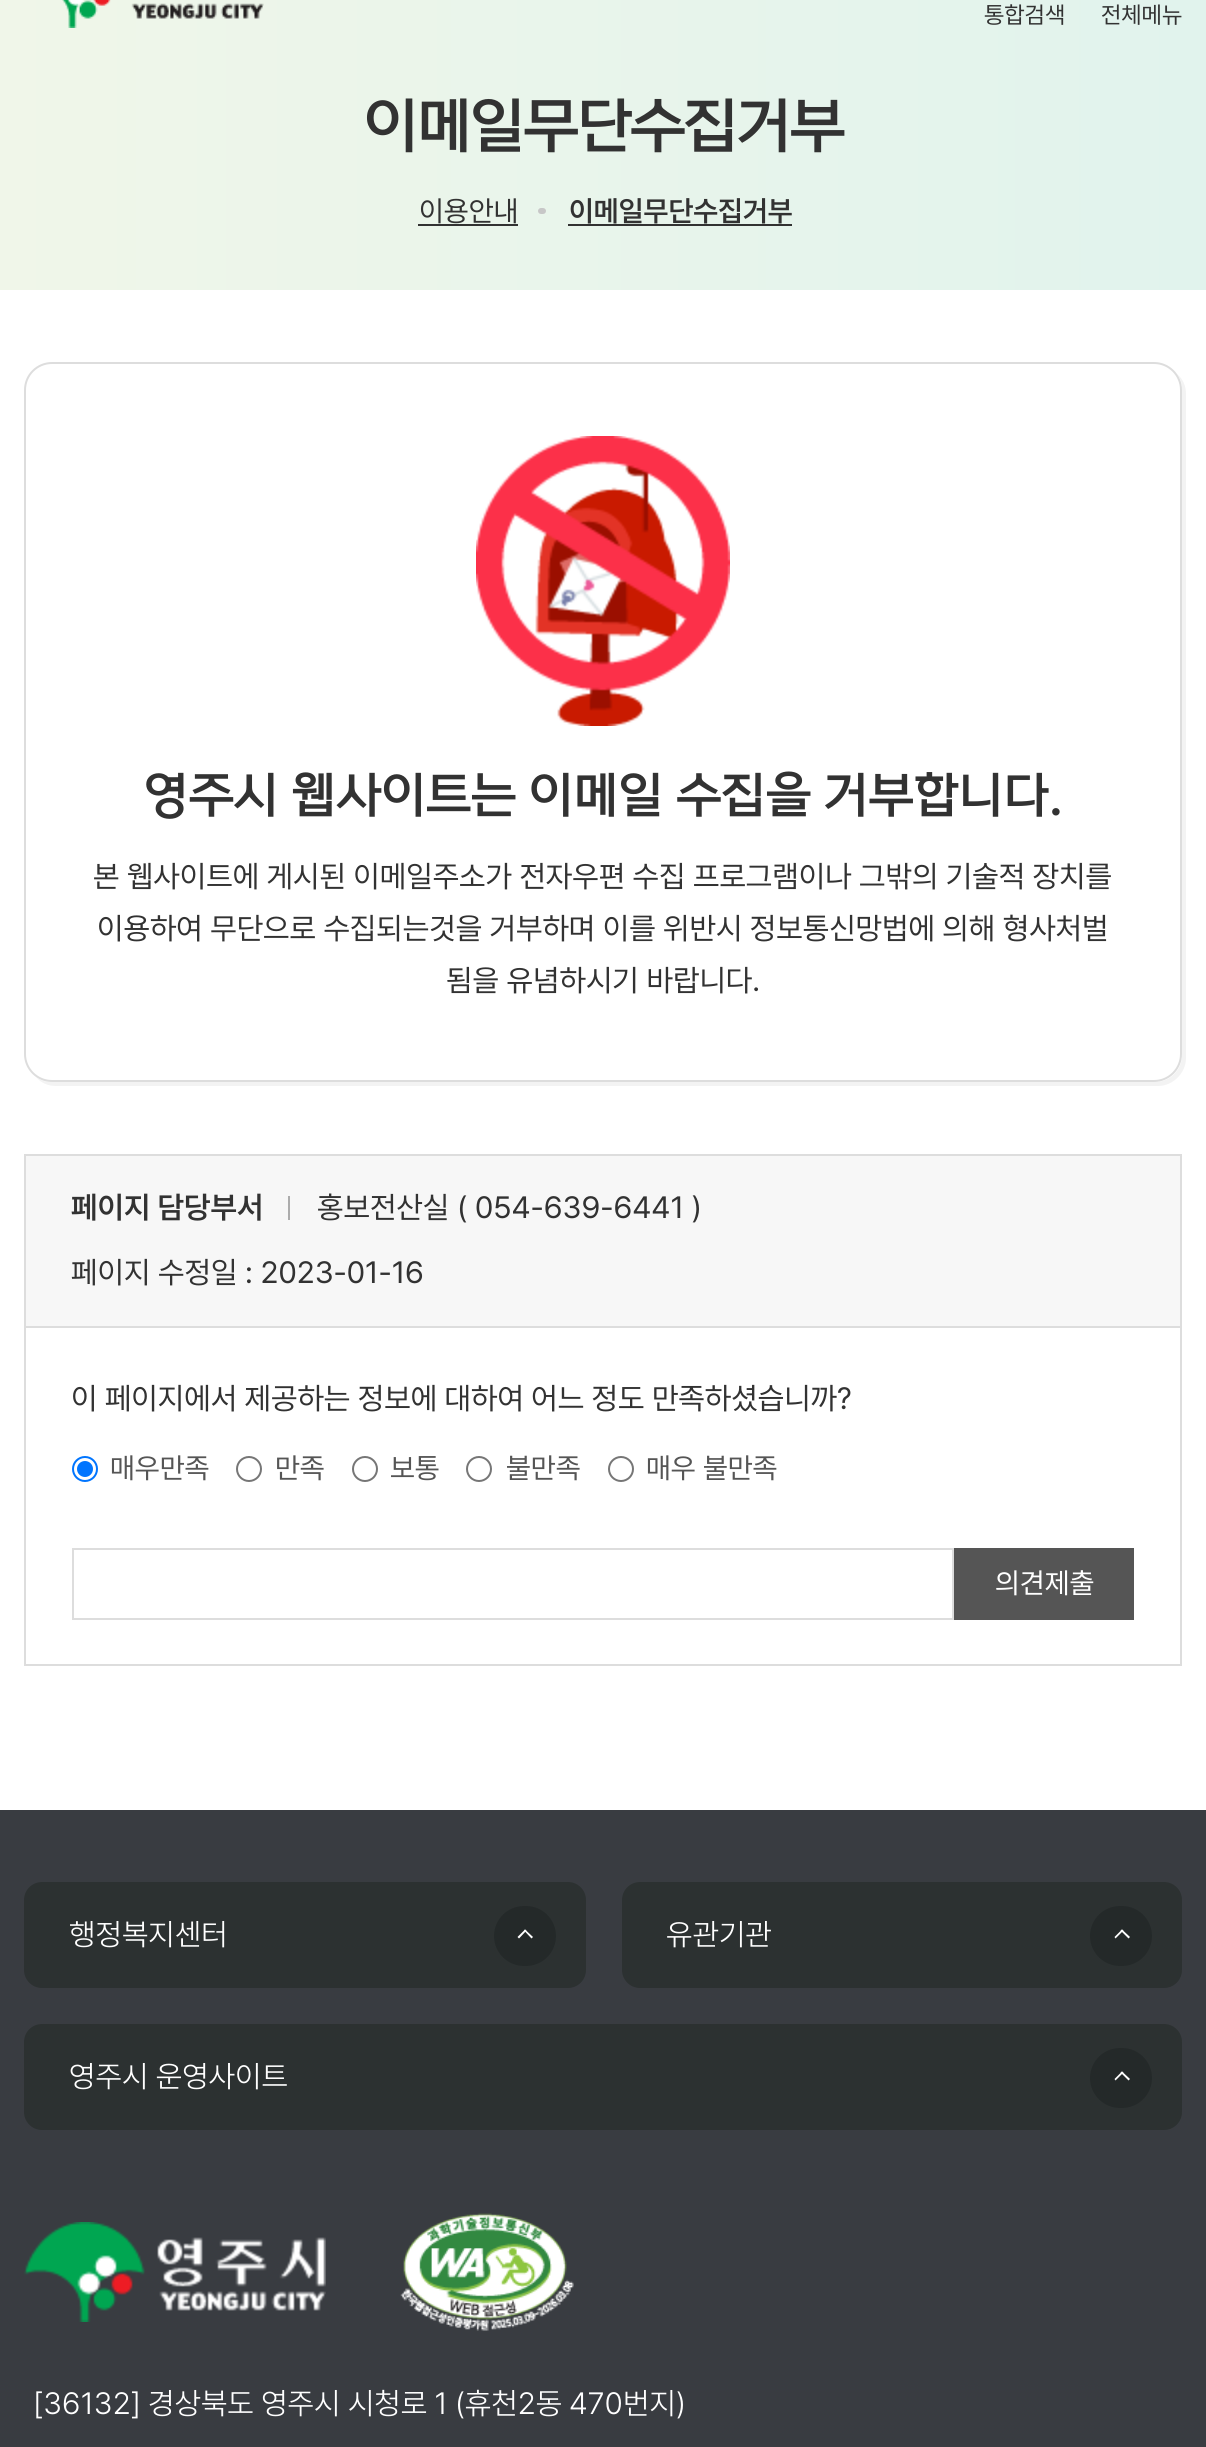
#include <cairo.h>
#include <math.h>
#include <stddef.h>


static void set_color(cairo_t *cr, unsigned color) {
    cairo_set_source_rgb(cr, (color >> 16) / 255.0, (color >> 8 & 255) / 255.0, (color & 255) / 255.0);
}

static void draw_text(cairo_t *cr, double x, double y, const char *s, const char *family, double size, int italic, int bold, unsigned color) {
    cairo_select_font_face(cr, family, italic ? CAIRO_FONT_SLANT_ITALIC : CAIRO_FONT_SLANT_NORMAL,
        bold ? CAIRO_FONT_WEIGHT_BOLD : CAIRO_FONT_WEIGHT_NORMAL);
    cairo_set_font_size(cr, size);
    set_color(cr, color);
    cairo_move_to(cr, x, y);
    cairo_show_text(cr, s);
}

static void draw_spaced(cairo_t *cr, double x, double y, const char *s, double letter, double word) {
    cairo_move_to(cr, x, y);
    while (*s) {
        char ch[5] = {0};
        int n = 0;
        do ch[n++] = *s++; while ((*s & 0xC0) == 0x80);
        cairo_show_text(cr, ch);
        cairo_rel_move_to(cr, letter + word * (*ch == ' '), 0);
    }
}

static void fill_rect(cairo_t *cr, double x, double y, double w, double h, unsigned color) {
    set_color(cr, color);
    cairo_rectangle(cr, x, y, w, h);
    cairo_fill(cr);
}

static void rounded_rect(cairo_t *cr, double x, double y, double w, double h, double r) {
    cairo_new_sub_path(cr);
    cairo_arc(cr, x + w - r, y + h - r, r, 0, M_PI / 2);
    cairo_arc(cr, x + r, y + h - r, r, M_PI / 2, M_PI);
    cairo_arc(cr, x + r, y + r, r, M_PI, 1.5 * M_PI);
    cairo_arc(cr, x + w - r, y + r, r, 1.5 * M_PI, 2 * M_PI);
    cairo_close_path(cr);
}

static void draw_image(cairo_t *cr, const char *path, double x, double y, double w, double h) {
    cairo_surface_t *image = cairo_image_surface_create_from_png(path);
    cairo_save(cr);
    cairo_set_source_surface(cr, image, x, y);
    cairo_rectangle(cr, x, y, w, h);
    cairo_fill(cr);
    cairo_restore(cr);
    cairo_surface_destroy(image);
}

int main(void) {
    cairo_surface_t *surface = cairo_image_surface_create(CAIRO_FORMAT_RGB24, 1206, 2447);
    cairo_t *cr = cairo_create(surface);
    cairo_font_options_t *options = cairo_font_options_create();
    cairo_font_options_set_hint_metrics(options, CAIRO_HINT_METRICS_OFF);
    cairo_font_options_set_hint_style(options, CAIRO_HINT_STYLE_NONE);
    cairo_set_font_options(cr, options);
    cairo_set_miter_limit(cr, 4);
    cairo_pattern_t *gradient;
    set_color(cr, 0xFFFFFF);
    cairo_paint(cr);
    gradient = cairo_pattern_create_linear(0, 71, 1206, 71);
    cairo_pattern_add_color_stop_rgba(gradient, 0, 0.941, 0.965, 0.914, 1);
    cairo_pattern_add_color_stop_rgba(gradient, 1, 0.882, 0.953, 0.929, 1);
    cairo_set_source(cr, gradient);
    cairo_pattern_destroy(gradient);
    cairo_rectangle(cr, 0, 0, 1206, 290);
    cairo_fill(cr);
    draw_image(cr, "assets/img1.png", 62, 0, 202, 28);
    draw_text(cr, 984, 23, "통합검색", "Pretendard", 23.5, 0, 0, 0x323232);
    draw_text(cr, 1101, 23, "전체메뉴", "Pretendard", 23.5, 0, 0, 0x323232);
    cairo_select_font_face(cr, "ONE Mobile", CAIRO_FONT_SLANT_NORMAL, CAIRO_FONT_WEIGHT_BOLD);
    cairo_set_font_size(cr, 59.5);
    draw_spaced(cr, 364, 144, "이메일무단수집거부", -1.75, 0);
    draw_text(cr, 419, 221, "이용안내", "Pretendard", 28.75, 0, 0, 0x323232);
    fill_rect(cr, 418, 224, 100, 2, 0x323232);
    set_color(cr, 0xC7C7C7);
    rounded_rect(cr, 538, 208, 8, 6, 3);
    cairo_fill(cr);
    draw_text(cr, 569, 221, "이메일무단수집거부", "Pretendard SemiBold", 28.75, 0, 0, 0x323232);
    fill_rect(cr, 568, 224, 224, 2, 0x323232);
    set_color(cr, 0xF3F3F3);
    cairo_new_path(cr);
    cairo_move_to(cr, 36, 1077);
    cairo_curve_to(cr, 41, 1083, 48, 1086, 56, 1086);
    cairo_line_to(cr, 1158, 1086);
    cairo_curve_to(cr, 1173, 1086, 1186, 1073, 1186, 1058);
    cairo_line_to(cr, 1186, 394);
    cairo_curve_to(cr, 1186, 386, 1183, 379, 1177, 374);
    cairo_curve_to(cr, 1180, 378, 1182, 383, 1182, 389);
    cairo_line_to(cr, 1182, 1055);
    cairo_curve_to(cr, 1182, 1070, 1170, 1082, 1155, 1082);
    cairo_line_to(cr, 51, 1082);
    cairo_curve_to(cr, 45, 1082, 40, 1080, 36, 1077);
    cairo_close_path(cr);
    cairo_fill(cr);
    draw_image(cr, "assets/img2.png", 476, 436, 254, 290);
    rounded_rect(cr, 25, 363, 1156, 718, 27);
    set_color(cr, 0xDDDDDD);
    cairo_stroke(cr);
    draw_text(cr, 144, 810, "영주시 웹사이트는 이메일 수집을 거부합니다.", "ONE Mobile", 48.6, 0, 1, 0x323232);
    cairo_select_font_face(cr, "Pretendard", CAIRO_FONT_SLANT_NORMAL, CAIRO_FONT_WEIGHT_NORMAL);
    cairo_set_font_size(cr, 30.6);
    draw_spaced(cr, 93, 887, "본 웹사이트에 게시된 이메일주소가 전자우편 수집 프로그램이나 그밖의 기술적 장치를", 0, -0.25);
    draw_spaced(cr, 97, 939, "이용하여 무단으로 수집되는것을 거부하며 이를 위반시 정보통신망법에 의해 형사처벌", 0, -0.25);
    draw_text(cr, 446, 991, "됨을 유념하시기 바랍니다.", "Pretendard", 30.6, 0, 0, 0x323232);
    cairo_rectangle(cr, 25, 1155, 1156, 510);
    set_color(cr, 0xDDDDDD);
    cairo_stroke(cr);
    fill_rect(cr, 26, 1156, 1154, 170, 0xF7F7F7);
    draw_text(cr, 71, 1218, "페이지 담당부서", "Pretendard SemiBold", 30.6, 0, 0, 0x323232);
    fill_rect(cr, 288, 1196, 2, 24, 0xACACAC);
    draw_text(cr, 317, 1218, "홍보전산실 ( 054-639-6441 )", "Pretendard", 30.6, 0, 0, 0x323232);
    draw_text(cr, 71, 1283, "페이지 수정일 : 2023-01-16", "Pretendard", 30.6, 0, 0, 0x323232);
    fill_rect(cr, 26, 1326, 1154, 2, 0xDDDDDD);
    set_color(cr, 0x323232);
    draw_spaced(cr, 71, 1409, "이 페이지에서 제공하는 정보에 대하여 어느 정도 만족하셨습니까?", 0, -0.25);
    cairo_new_path(cr);
    cairo_arc(cr, 85, 1469, 12, 0, 2 * M_PI);
    set_color(cr, 0x0075FF);
    cairo_stroke(cr);
    cairo_arc(cr, 85, 1469, 8, 0, 2 * M_PI);
    cairo_fill(cr);
    draw_text(cr, 110, 1478, "매우만족", "Pretendard", 28.75, 0, 0, 0x555555);
    cairo_new_path(cr);
    cairo_arc(cr, 249, 1469, 12, 0, 2 * M_PI);
    set_color(cr, 0x767676);
    cairo_stroke(cr);
    draw_text(cr, 275, 1478, "만족", "Pretendard", 28.75, 0, 0, 0x555555);
    cairo_new_path(cr);
    cairo_arc(cr, 365, 1469, 12, 0, 2 * M_PI);
    set_color(cr, 0x767676);
    cairo_stroke(cr);
    draw_text(cr, 390, 1478, "보통", "Pretendard", 28.75, 0, 0, 0x555555);
    cairo_new_path(cr);
    cairo_arc(cr, 479, 1469, 12, 0, 2 * M_PI);
    set_color(cr, 0x767676);
    cairo_stroke(cr);
    draw_text(cr, 506, 1478, "불만족", "Pretendard", 28.75, 0, 0, 0x555555);
    cairo_new_path(cr);
    cairo_arc(cr, 621, 1469, 12, 0, 2 * M_PI);
    set_color(cr, 0x767676);
    cairo_stroke(cr);
    draw_text(cr, 646, 1478, "매우 불만족", "Pretendard", 28.75, 0, 0, 0x555555);
    cairo_rectangle(cr, 73, 1549, 880, 70);
    set_color(cr, 0xDDDDDD);
    cairo_stroke(cr);
    fill_rect(cr, 954, 1548, 180, 72, 0x555555);
    draw_text(cr, 995, 1593, "의견제출", "Pretendard", 28.75, 0, 0, 0xFFFFFF);
    fill_rect(cr, 0, 1810, 1206, 637, 0x393C41);
    set_color(cr, 0x2C3131);
    rounded_rect(cr, 24, 1882, 562, 106, 18);
    cairo_fill(cr);
    draw_text(cr, 69, 1945, "행정복지센터", "Pretendard Light", 30.6, 0, 0, 0xFFFFFF);
    set_color(cr, 0x242929);
    rounded_rect(cr, 494, 1906, 62, 60, 30);
    cairo_fill(cr);
    set_color(cr, 0xFFFFFF);
    cairo_new_path(cr);
    cairo_move_to(cr, 517.5, 1937);
    cairo_line_to(cr, 525, 1929.5);
    cairo_line_to(cr, 526.5, 1930.5);
    cairo_line_to(cr, 519, 1938.5);
    cairo_close_path(cr);
    cairo_fill(cr);
    cairo_new_path(cr);
    cairo_move_to(cr, 524, 1930.5);
    cairo_line_to(cr, 525, 1929.5);
    cairo_line_to(cr, 533, 1937);
    cairo_line_to(cr, 531.5, 1938.5);
    cairo_close_path(cr);
    cairo_fill(cr);
    set_color(cr, 0x2C3131);
    rounded_rect(cr, 622, 1882, 560, 106, 18);
    cairo_fill(cr);
    draw_text(cr, 666, 1945, "유관기관", "Pretendard Light", 30.6, 0, 0, 0xFFFFFF);
    set_color(cr, 0x242929);
    rounded_rect(cr, 1090, 1906, 62, 60, 30);
    cairo_fill(cr);
    set_color(cr, 0xFFFFFF);
    cairo_new_path(cr);
    cairo_move_to(cr, 1114.5, 1937);
    cairo_line_to(cr, 1122, 1929.5);
    cairo_line_to(cr, 1123.5, 1930.5);
    cairo_line_to(cr, 1115.5, 1938.5);
    cairo_close_path(cr);
    cairo_fill(cr);
    cairo_new_path(cr);
    cairo_move_to(cr, 1120.5, 1930.5);
    cairo_line_to(cr, 1122, 1929.5);
    cairo_line_to(cr, 1130, 1937);
    cairo_line_to(cr, 1128.5, 1938.5);
    cairo_close_path(cr);
    cairo_fill(cr);
    set_color(cr, 0x2C3131);
    rounded_rect(cr, 24, 2024, 1158, 106, 18);
    cairo_fill(cr);
    draw_text(cr, 69, 2087, "영주시 운영사이트", "Pretendard Light", 30.6, 0, 0, 0xFFFFFF);
    set_color(cr, 0x242929);
    rounded_rect(cr, 1090, 2048, 62, 60, 30);
    cairo_fill(cr);
    set_color(cr, 0xFFFFFF);
    cairo_new_path(cr);
    cairo_move_to(cr, 1114.5, 2079);
    cairo_line_to(cr, 1122, 2071.5);
    cairo_line_to(cr, 1123.5, 2072.5);
    cairo_line_to(cr, 1115.5, 2080.5);
    cairo_close_path(cr);
    cairo_fill(cr);
    cairo_new_path(cr);
    cairo_move_to(cr, 1120.5, 2072.5);
    cairo_line_to(cr, 1122, 2071.5);
    cairo_line_to(cr, 1130, 2079);
    cairo_line_to(cr, 1128.5, 2080.5);
    cairo_close_path(cr);
    cairo_fill(cr);
    draw_image(cr, "assets/img3.png", 24, 2222, 302, 100);
    draw_image(cr, "assets/img4.png", 400, 2213, 174, 118);
    draw_spaced(cr, 33, 2414, "[36132]", 0.25, 0);
    draw_text(cr, 148, 2414, "경상북도 영주시 시청로 1 (휴천2동", "Pretendard Light", 30.6, 0, 0, 0xFFFFFF);
    draw_spaced(cr, 569, 2414, "470", 0.25, 0);
    draw_text(cr, 623, 2414, "번지)", "Pretendard Light", 30.6, 0, 0, 0xFFFFFF);
    cairo_surface_write_to_png(surface, "output.png");
    cairo_font_options_destroy(options);
    cairo_destroy(cr);
    cairo_surface_destroy(surface);
    return 0;
}
